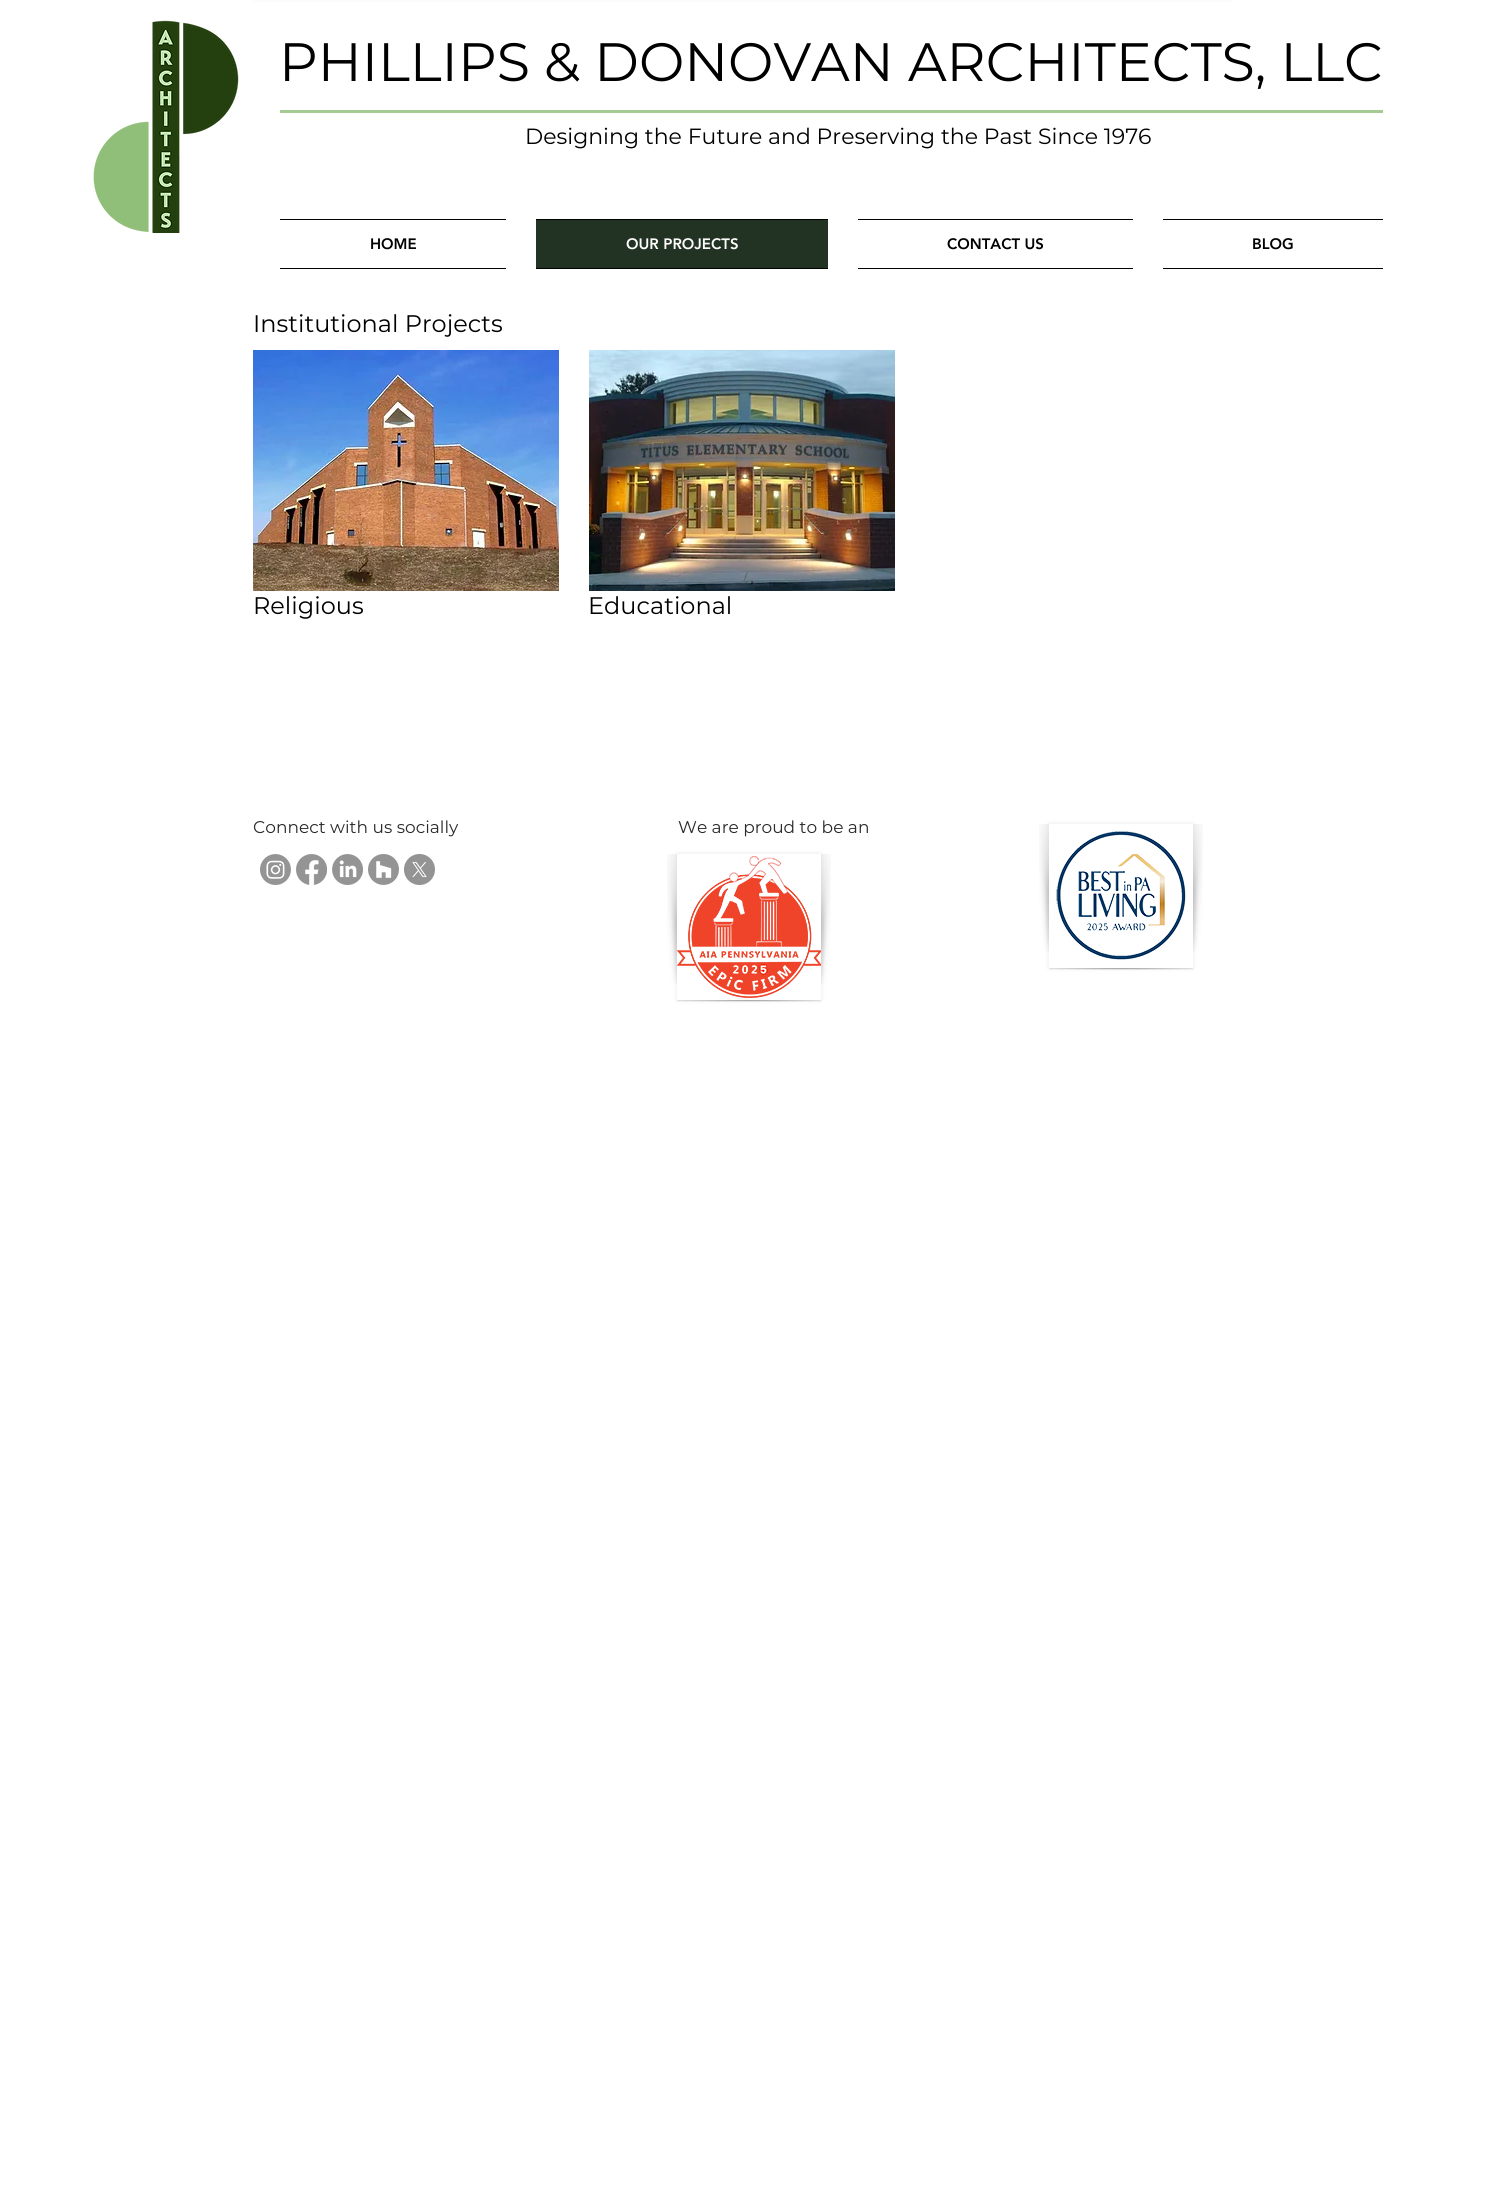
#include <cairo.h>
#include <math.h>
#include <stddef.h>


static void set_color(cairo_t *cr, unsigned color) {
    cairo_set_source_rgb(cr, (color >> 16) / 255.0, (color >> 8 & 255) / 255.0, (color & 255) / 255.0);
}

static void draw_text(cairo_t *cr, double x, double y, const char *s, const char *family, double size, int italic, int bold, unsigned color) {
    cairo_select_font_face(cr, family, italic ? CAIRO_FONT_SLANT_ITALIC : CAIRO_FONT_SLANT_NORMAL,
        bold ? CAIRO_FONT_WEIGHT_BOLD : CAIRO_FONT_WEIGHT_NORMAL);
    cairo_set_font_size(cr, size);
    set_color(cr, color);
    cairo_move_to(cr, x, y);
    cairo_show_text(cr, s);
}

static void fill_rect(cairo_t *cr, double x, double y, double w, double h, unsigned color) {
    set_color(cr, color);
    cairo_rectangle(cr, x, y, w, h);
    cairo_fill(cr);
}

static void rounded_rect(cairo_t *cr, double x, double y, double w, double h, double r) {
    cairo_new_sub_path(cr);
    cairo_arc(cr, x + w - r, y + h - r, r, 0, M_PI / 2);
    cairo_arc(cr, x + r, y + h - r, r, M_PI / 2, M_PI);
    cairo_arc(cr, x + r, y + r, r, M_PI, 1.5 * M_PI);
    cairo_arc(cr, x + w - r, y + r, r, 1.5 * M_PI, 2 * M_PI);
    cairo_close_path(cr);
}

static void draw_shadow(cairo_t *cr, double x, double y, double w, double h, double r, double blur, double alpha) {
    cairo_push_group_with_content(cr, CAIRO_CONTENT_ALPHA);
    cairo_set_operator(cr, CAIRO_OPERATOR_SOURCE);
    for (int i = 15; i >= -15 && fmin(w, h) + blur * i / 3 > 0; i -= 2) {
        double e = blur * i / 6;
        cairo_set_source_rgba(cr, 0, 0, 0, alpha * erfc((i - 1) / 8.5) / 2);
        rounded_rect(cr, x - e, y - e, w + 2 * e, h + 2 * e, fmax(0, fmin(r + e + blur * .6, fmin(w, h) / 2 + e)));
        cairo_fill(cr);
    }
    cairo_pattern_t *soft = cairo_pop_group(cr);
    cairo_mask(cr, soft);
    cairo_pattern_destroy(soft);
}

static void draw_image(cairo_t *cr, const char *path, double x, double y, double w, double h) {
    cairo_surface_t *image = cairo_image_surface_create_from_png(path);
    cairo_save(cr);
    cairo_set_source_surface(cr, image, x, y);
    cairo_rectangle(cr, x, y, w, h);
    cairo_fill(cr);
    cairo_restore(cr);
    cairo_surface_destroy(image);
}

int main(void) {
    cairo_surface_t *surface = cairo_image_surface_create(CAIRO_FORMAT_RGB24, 1486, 2209);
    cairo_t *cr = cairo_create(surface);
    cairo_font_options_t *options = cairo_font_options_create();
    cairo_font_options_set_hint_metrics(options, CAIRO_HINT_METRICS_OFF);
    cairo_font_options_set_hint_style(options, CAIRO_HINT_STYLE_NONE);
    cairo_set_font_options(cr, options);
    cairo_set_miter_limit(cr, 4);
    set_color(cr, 0xFFFFFF);
    cairo_paint(cr);
    fill_rect(cr, 253, 0, 980, 2, 0xFDFBFC);
    draw_image(cr, "assets/img1.png", 93, 20, 146, 213);
    draw_text(cr, 279, 81, "PHILLIPS & DONOVAN ARCHITECTS, LLC", "Montserrat", 54, 0, 0, 0x000000);
    fill_rect(cr, 280, 110, 1103, 3, 0xA4CB92);
    draw_text(cr, 525, 144, "Designing the Future and Preserving the Past Since 1976", "Montserrat", 22, 0, 0, 0x000000);
    fill_rect(cr, 280, 219, 226, 1, 0x000000);
    fill_rect(cr, 280, 268, 226, 1, 0x000000);
    draw_text(cr, 370, 249, "HOME", "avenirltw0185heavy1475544 Black", 15, 0, 0, 0x000000);
    fill_rect(cr, 536, 220, 292, 48, 0x223324);
    fill_rect(cr, 536, 219, 292, 1, 0x000000);
    fill_rect(cr, 536, 268, 292, 1, 0x000000);
    draw_text(cr, 626, 249, "OUR PROJECTS", "avenirltw0185heavy1475544 Black", 15, 0, 0, 0xFDFBFC);
    fill_rect(cr, 858, 219, 275, 1, 0x000000);
    fill_rect(cr, 858, 268, 275, 1, 0x000000);
    draw_text(cr, 947, 249, "CONTACT US", "avenirltw0185heavy1475544 Black", 15, 0, 0, 0x000000);
    fill_rect(cr, 1163, 219, 220, 1, 0x000000);
    fill_rect(cr, 1163, 268, 220, 1, 0x000000);
    draw_text(cr, 1252, 249, "BLOG", "avenirltw0185heavy1475544 Black", 15, 0, 0, 0x000000);
    draw_text(cr, 253, 332, "Institutional Projects", "Montserrat", 24, 0, 0, 0x000000);
    draw_image(cr, "assets/img2.png", 253, 350, 306, 241);
    fill_rect(cr, 895, 350, 1, 241, 0xFDFBFC);
    draw_image(cr, "assets/img3.png", 589, 350, 306, 241);
    draw_text(cr, 253, 614, "Religious", "Montserrat", 24, 0, 0, 0x000000);
    draw_text(cr, 588, 614, "Educational", "Montserrat", 24, 0, 0, 0x000000);
    draw_text(cr, 253, 833, "Connect with us socially", "Montserrat", 17, 0, 0, 0x292929);
    draw_text(cr, 678, 833, "We are proud to be an", "Montserrat", 17, 0, 0, 0x292929);
    cairo_save(cr);
    cairo_set_fill_rule(cr, CAIRO_FILL_RULE_EVEN_ODD);
    cairo_new_path(cr);
    cairo_move_to(cr, 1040, 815);
    cairo_line_to(cr, 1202, 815);
    cairo_line_to(cr, 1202, 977);
    cairo_line_to(cr, 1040, 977);
    cairo_close_path(cr);
    cairo_move_to(cr, 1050, 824);
    cairo_line_to(cr, 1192, 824);
    cairo_curve_to(cr, 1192.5, 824, 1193, 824.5, 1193, 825);
    cairo_line_to(cr, 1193, 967);
    cairo_curve_to(cr, 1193, 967.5, 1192.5, 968, 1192, 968);
    cairo_line_to(cr, 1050, 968);
    cairo_curve_to(cr, 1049.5, 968, 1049, 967.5, 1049, 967);
    cairo_line_to(cr, 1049, 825);
    cairo_curve_to(cr, 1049, 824.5, 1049.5, 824, 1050, 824);
    cairo_close_path(cr);
    cairo_clip(cr);
    set_color(cr, 0x000000);
    draw_shadow(cr, 1049, 824, 144, 144, 1, 2.5, 0.1);
    cairo_restore(cr);
    draw_image(cr, "assets/img4.png", 1056, 831, 130, 129);
    draw_image(cr, "assets/img5.png", 1049, 968, 144, 2);
    draw_image(cr, "assets/img6.png", 1039, 824, 10, 128);
    draw_image(cr, "assets/img7.png", 1193, 824, 10, 128);
    draw_image(cr, "assets/img8.png", 260, 854, 31, 31);
    draw_image(cr, "assets/img9.png", 296, 854, 31, 31);
    draw_image(cr, "assets/img10.png", 332, 854, 31, 31);
    draw_image(cr, "assets/img11.png", 368, 854, 31, 31);
    draw_image(cr, "assets/img12.png", 404, 854, 31, 31);
    cairo_save(cr);
    cairo_set_fill_rule(cr, CAIRO_FILL_RULE_EVEN_ODD);
    cairo_new_path(cr);
    cairo_move_to(cr, 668, 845);
    cairo_line_to(cr, 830, 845);
    cairo_line_to(cr, 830, 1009);
    cairo_line_to(cr, 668, 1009);
    cairo_close_path(cr);
    cairo_move_to(cr, 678, 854);
    cairo_line_to(cr, 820, 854);
    cairo_curve_to(cr, 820.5, 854, 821, 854.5, 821, 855);
    cairo_line_to(cr, 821, 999);
    cairo_curve_to(cr, 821, 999.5, 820.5, 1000, 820, 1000);
    cairo_line_to(cr, 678, 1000);
    cairo_curve_to(cr, 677.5, 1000, 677, 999.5, 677, 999);
    cairo_line_to(cr, 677, 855);
    cairo_curve_to(cr, 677, 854.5, 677.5, 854, 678, 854);
    cairo_close_path(cr);
    cairo_clip(cr);
    set_color(cr, 0x000000);
    draw_shadow(cr, 677, 854, 144, 146, 1, 2.5, 0.1);
    cairo_restore(cr);
    draw_image(cr, "assets/img13.png", 677, 856, 144, 142);
    draw_image(cr, "assets/img5.png", 677, 1000, 144, 2);
    draw_image(cr, "assets/img14.png", 667, 854, 10, 130);
    draw_image(cr, "assets/img15.png", 821, 854, 10, 130);
    cairo_surface_write_to_png(surface, "output.png");
    cairo_font_options_destroy(options);
    cairo_destroy(cr);
    cairo_surface_destroy(surface);
    return 0;
}
